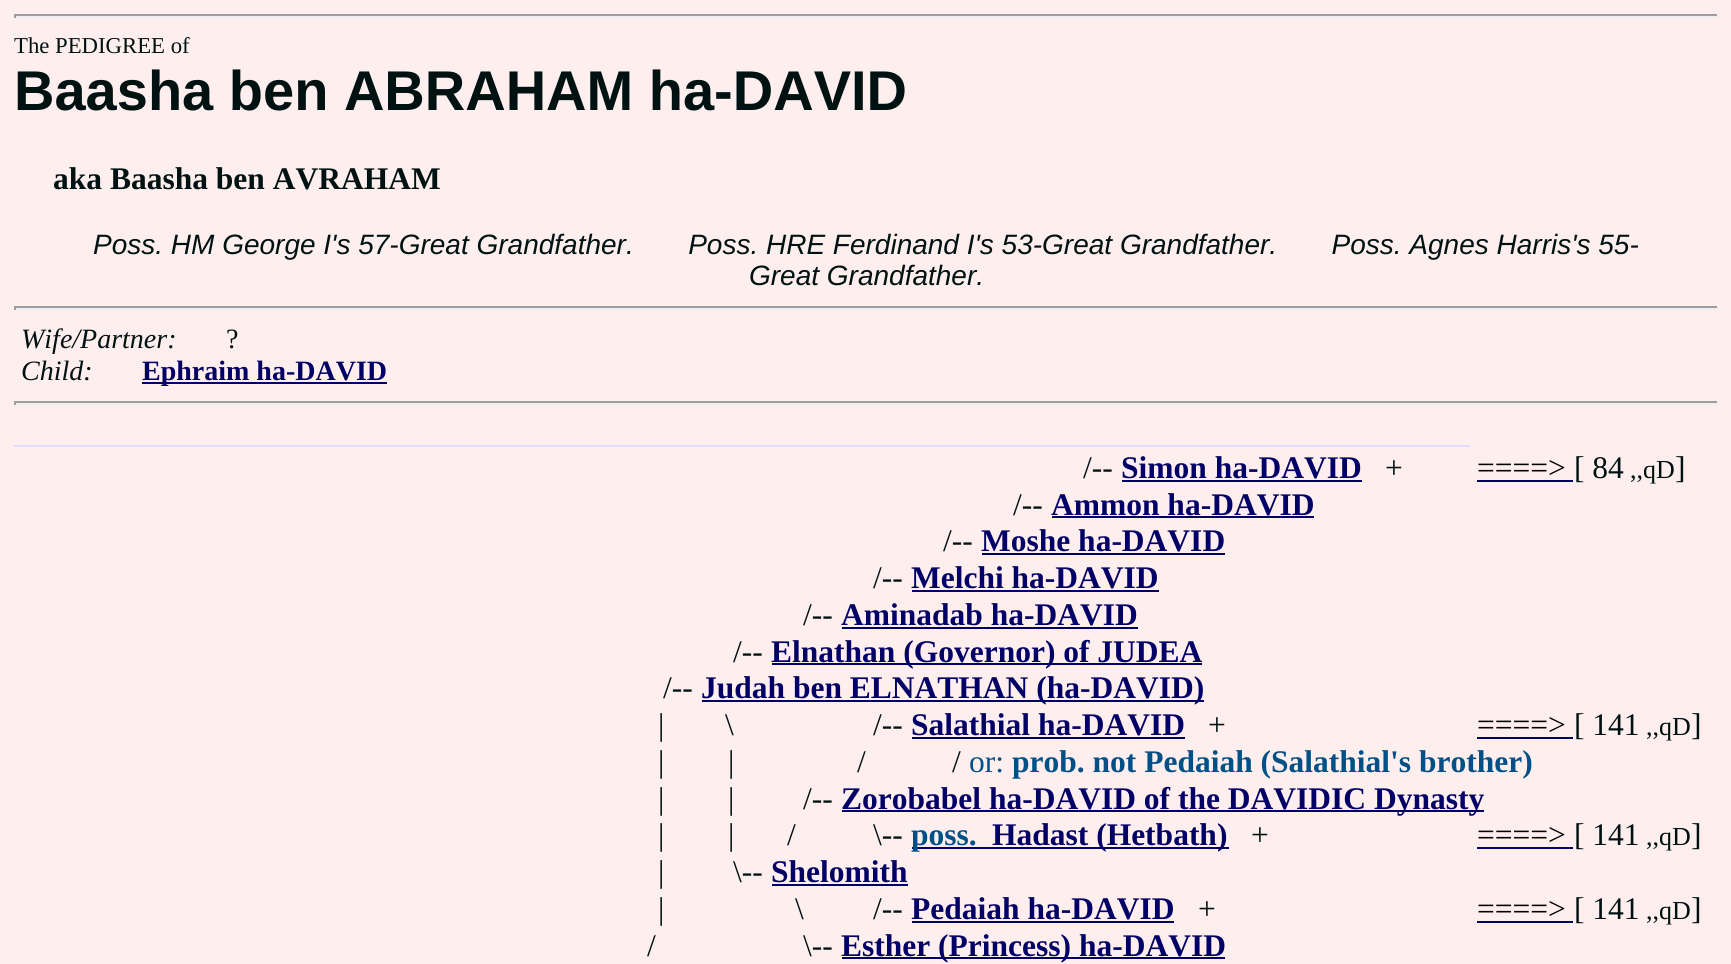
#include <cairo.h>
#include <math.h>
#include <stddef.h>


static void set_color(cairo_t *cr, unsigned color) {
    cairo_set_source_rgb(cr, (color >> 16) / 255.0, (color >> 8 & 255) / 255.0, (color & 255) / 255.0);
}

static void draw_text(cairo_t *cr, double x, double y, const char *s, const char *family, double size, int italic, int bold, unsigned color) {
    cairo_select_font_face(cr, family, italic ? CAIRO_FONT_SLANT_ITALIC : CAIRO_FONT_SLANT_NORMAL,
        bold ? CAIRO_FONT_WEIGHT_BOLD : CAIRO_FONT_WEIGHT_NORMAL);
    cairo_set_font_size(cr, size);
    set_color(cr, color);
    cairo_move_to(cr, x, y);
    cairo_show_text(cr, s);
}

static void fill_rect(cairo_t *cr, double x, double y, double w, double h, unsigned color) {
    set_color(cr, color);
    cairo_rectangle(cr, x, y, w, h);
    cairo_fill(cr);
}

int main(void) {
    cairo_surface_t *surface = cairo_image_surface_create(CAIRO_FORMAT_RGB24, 1731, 964);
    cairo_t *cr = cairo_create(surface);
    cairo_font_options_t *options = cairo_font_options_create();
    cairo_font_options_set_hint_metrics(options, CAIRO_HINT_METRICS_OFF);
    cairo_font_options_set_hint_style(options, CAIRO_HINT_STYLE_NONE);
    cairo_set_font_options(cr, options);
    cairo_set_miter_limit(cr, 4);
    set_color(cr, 0xFFEEEE);
    cairo_paint(cr);
    fill_rect(cr, 14, 14, 1705, 2, 0x9F9F9F);
    fill_rect(cr, 1717, 14, 2, 4, 0xEEEEEE);
    fill_rect(cr, 14, 16, 1705, 2, 0xEEEEEE);
    fill_rect(cr, 14, 14, 2, 4, 0x9F9F9F);
    draw_text(cr, 14, 53, "The PEDIGREE of", "Liberation Serif", 22.75, 0, 0, 0x001111);
    draw_text(cr, 14, 110, "Baasha ben ABRAHAM ha-DAVID", "Liberation Sans", 56, 0, 1, 0x001111);
    draw_text(cr, 53, 189, "aka Baasha ben AVRAHAM", "Liberation Serif", 31.5, 0, 1, 0x001111);
    draw_text(cr, 93, 254, "Poss. HM George I's 57-Great Grandfather.       Poss. HRE Ferdinand I's 53-Great Grandfather.       Poss. Agnes Harris's 55-", "Liberation Sans", 28, 1, 0, 0x001111);
    draw_text(cr, 749, 285, "Great Grandfather.", "Liberation Sans", 28, 1, 0, 0x001111);
    fill_rect(cr, 14, 306, 1705, 2, 0x9F9F9F);
    fill_rect(cr, 1717, 306, 2, 4, 0xEEEEEE);
    fill_rect(cr, 14, 308, 1705, 2, 0xEEEEEE);
    fill_rect(cr, 14, 306, 2, 4, 0x9F9F9F);
    draw_text(cr, 21, 348, "Wife/Partner:", "Liberation Serif", 28, 1, 0, 0x001111);
    draw_text(cr, 226, 348, "?", "Liberation Serif", 28, 0, 0, 0x001111);
    draw_text(cr, 21, 380, "Child:", "Liberation Serif", 28, 1, 0, 0x001111);
    fill_rect(cr, 142, 382, 245, 2, 0x000066);
    draw_text(cr, 142, 380, "Ephraim ha-DAVID", "Liberation Serif", 28, 0, 1, 0x000066);
    fill_rect(cr, 14, 401, 1705, 2, 0x9F9F9F);
    fill_rect(cr, 1717, 401, 2, 4, 0xEEEEEE);
    fill_rect(cr, 14, 403, 1705, 2, 0xEEEEEE);
    fill_rect(cr, 14, 401, 2, 4, 0x9F9F9F);
    draw_text(cr, 14, 443, "________________________________________________________________________________________________________", "Liberation Serif", 28, 0, 1, 0xDDDDFF);
    draw_text(cr, 1083, 478, "/--", "Liberation Serif", 31.5, 0, 0, 0x001111);
    draw_text(cr, 1121, 478, "Simon ha-DAVID", "Liberation Serif", 31.5, 0, 1, 0x000066);
    fill_rect(cr, 1122, 480, 240, 2, 0x000066);
    draw_text(cr, 1385, 478, "+", "Liberation Serif", 31.5, 0, 0, 0x001111);
    draw_text(cr, 1477, 478, "====>", "Liberation Serif", 31.5, 0, 0, 0x000000);
    fill_rect(cr, 1477, 480, 96, 2, 0x000066);
    draw_text(cr, 1574, 478, "[ 84", "Liberation Serif", 31.5, 0, 0, 0x001111);
    draw_text(cr, 1630, 478, ",,qD", "Liberation Serif", 26, 0, 0, 0x001111);
    draw_text(cr, 1675, 478, "]", "Liberation Serif", 31.5, 0, 0, 0x001111);
    draw_text(cr, 1013, 515, "/--", "Liberation Serif", 31.5, 0, 0, 0x001111);
    draw_text(cr, 1051, 515, "Ammon ha-DAVID", "Liberation Serif", 31.5, 0, 1, 0x000066);
    fill_rect(cr, 1052, 516, 262, 2, 0x000066);
    draw_text(cr, 943, 551, "/--", "Liberation Serif", 31.5, 0, 0, 0x001111);
    draw_text(cr, 981, 551, "Moshe ha-DAVID", "Liberation Serif", 31.5, 0, 1, 0x000066);
    fill_rect(cr, 982, 553, 243, 2, 0x000066);
    draw_text(cr, 873, 588, "/--", "Liberation Serif", 31.5, 0, 0, 0x001111);
    draw_text(cr, 911, 588, "Melchi ha-DAVID", "Liberation Serif", 31.5, 0, 1, 0x000066);
    fill_rect(cr, 912, 590, 247, 2, 0x000066);
    draw_text(cr, 803, 625, "/--", "Liberation Serif", 31.5, 0, 0, 0x001111);
    draw_text(cr, 841, 625, "Aminadab ha-DAVID", "Liberation Serif", 31.5, 0, 1, 0x000066);
    fill_rect(cr, 842, 627, 296, 2, 0x000066);
    draw_text(cr, 733, 662, "/--", "Liberation Serif", 31.5, 0, 0, 0x001111);
    fill_rect(cr, 772, 663, 430, 2, 0x000066);
    draw_text(cr, 771, 662, "Elnathan (Governor) of JUDEA", "Liberation Serif", 31.5, 0, 1, 0x000066);
    draw_text(cr, 663, 698, "/--", "Liberation Serif", 31.5, 0, 0, 0x001111);
    fill_rect(cr, 702, 700, 502, 2, 0x000066);
    draw_text(cr, 701, 698, "Judah ben ELNATHAN (ha-DAVID)", "Liberation Serif", 31.5, 0, 1, 0x000066);
    draw_text(cr, 658, 735, "|", "Liberation Serif", 31.5, 0, 0, 0x001111);
    draw_text(cr, 725, 735, "\\", "Liberation Serif", 31.5, 0, 0, 0x001111);
    draw_text(cr, 873, 735, "/--", "Liberation Serif", 31.5, 0, 0, 0x001111);
    draw_text(cr, 911, 735, "Salathial ha-DAVID", "Liberation Serif", 31.5, 0, 1, 0x000066);
    fill_rect(cr, 912, 737, 273, 2, 0x000066);
    draw_text(cr, 1208, 735, "+", "Liberation Serif", 31.5, 0, 0, 0x001111);
    draw_text(cr, 1477, 735, "====>", "Liberation Serif", 31.5, 0, 0, 0x000000);
    fill_rect(cr, 1477, 737, 96, 2, 0x000066);
    draw_text(cr, 1574, 735, "[ 141", "Liberation Serif", 31.5, 0, 0, 0x001111);
    draw_text(cr, 1646, 735, ",,qD", "Liberation Serif", 26, 0, 0, 0x001111);
    draw_text(cr, 1691, 735, "]", "Liberation Serif", 31.5, 0, 0, 0x001111);
    draw_text(cr, 658, 772, "|", "Liberation Serif", 31.5, 0, 0, 0x001111);
    draw_text(cr, 728, 772, "|", "Liberation Serif", 31.5, 0, 0, 0x001111);
    draw_text(cr, 857, 772, "/", "Liberation Serif", 31.5, 0, 0, 0x001111);
    draw_text(cr, 952, 772, "/", "Liberation Serif", 31.5, 0, 0, 0x001111);
    draw_text(cr, 969, 772, "or:", "Liberation Serif", 31.5, 0, 0, 0x005088);
    draw_text(cr, 1012, 772, "prob. not Pedaiah (Salathial's brother)", "Liberation Serif", 31.5, 0, 1, 0x005088);
    draw_text(cr, 658, 809, "|", "Liberation Serif", 31.5, 0, 0, 0x001111);
    draw_text(cr, 728, 809, "|", "Liberation Serif", 31.5, 0, 0, 0x001111);
    draw_text(cr, 803, 809, "/--", "Liberation Serif", 31.5, 0, 0, 0x001111);
    fill_rect(cr, 842, 810, 642, 2, 0x000066);
    draw_text(cr, 841, 809, "Zorobabel ha-DAVID of the DAVIDIC Dynasty", "Liberation Serif", 31.5, 0, 1, 0x000066);
    draw_text(cr, 658, 845, "|", "Liberation Serif", 31.5, 0, 0, 0x001111);
    draw_text(cr, 728, 845, "|", "Liberation Serif", 31.5, 0, 0, 0x001111);
    draw_text(cr, 787, 845, "/", "Liberation Serif", 31.5, 0, 0, 0x001111);
    draw_text(cr, 873, 845, "\\--", "Liberation Serif", 31.5, 0, 0, 0x001111);
    fill_rect(cr, 912, 847, 317, 2, 0x000066);
    draw_text(cr, 911, 845, "poss.", "Liberation Serif", 31.5, 0, 1, 0x005088);
    draw_text(cr, 992, 845, "Hadast (Hetbath)", "Liberation Serif", 31.5, 0, 1, 0x000066);
    draw_text(cr, 1251, 845, "+", "Liberation Serif", 31.5, 0, 0, 0x001111);
    draw_text(cr, 1477, 845, "====>", "Liberation Serif", 31.5, 0, 0, 0x000000);
    fill_rect(cr, 1477, 847, 96, 2, 0x000066);
    draw_text(cr, 1574, 845, "[ 141", "Liberation Serif", 31.5, 0, 0, 0x001111);
    draw_text(cr, 1646, 845, ",,qD", "Liberation Serif", 26, 0, 0, 0x001111);
    draw_text(cr, 1691, 845, "]", "Liberation Serif", 31.5, 0, 0, 0x001111);
    draw_text(cr, 658, 882, "|", "Liberation Serif", 31.5, 0, 0, 0x001111);
    draw_text(cr, 733, 882, "\\--", "Liberation Serif", 31.5, 0, 0, 0x001111);
    draw_text(cr, 771, 882, "Shelomith", "Liberation Serif", 31.5, 0, 1, 0x000066);
    fill_rect(cr, 772, 884, 136, 2, 0x000066);
    draw_text(cr, 658, 919, "|", "Liberation Serif", 31.5, 0, 0, 0x001111);
    draw_text(cr, 795, 919, "\\", "Liberation Serif", 31.5, 0, 0, 0x001111);
    draw_text(cr, 873, 919, "/--", "Liberation Serif", 31.5, 0, 0, 0x001111);
    draw_text(cr, 911, 919, "Pedaiah ha-DAVID", "Liberation Serif", 31.5, 0, 1, 0x000066);
    fill_rect(cr, 912, 921, 262, 2, 0x000066);
    draw_text(cr, 1198, 919, "+", "Liberation Serif", 31.5, 0, 0, 0x001111);
    draw_text(cr, 1477, 919, "====>", "Liberation Serif", 31.5, 0, 0, 0x000000);
    fill_rect(cr, 1477, 921, 96, 2, 0x000066);
    draw_text(cr, 1574, 919, "[ 141", "Liberation Serif", 31.5, 0, 0, 0x001111);
    draw_text(cr, 1646, 919, ",,qD", "Liberation Serif", 26, 0, 0, 0x001111);
    draw_text(cr, 1691, 919, "]", "Liberation Serif", 31.5, 0, 0, 0x001111);
    draw_text(cr, 647, 956, "/", "Liberation Serif", 31.5, 0, 0, 0x001111);
    draw_text(cr, 803, 956, "\\--", "Liberation Serif", 31.5, 0, 0, 0x001111);
    fill_rect(cr, 842, 957, 383, 2, 0x000066);
    draw_text(cr, 841, 956, "Esther (Princess) ha-DAVID", "Liberation Serif", 31.5, 0, 1, 0x000066);
    cairo_surface_write_to_png(surface, "output.png");
    cairo_font_options_destroy(options);
    cairo_destroy(cr);
    cairo_surface_destroy(surface);
    return 0;
}
